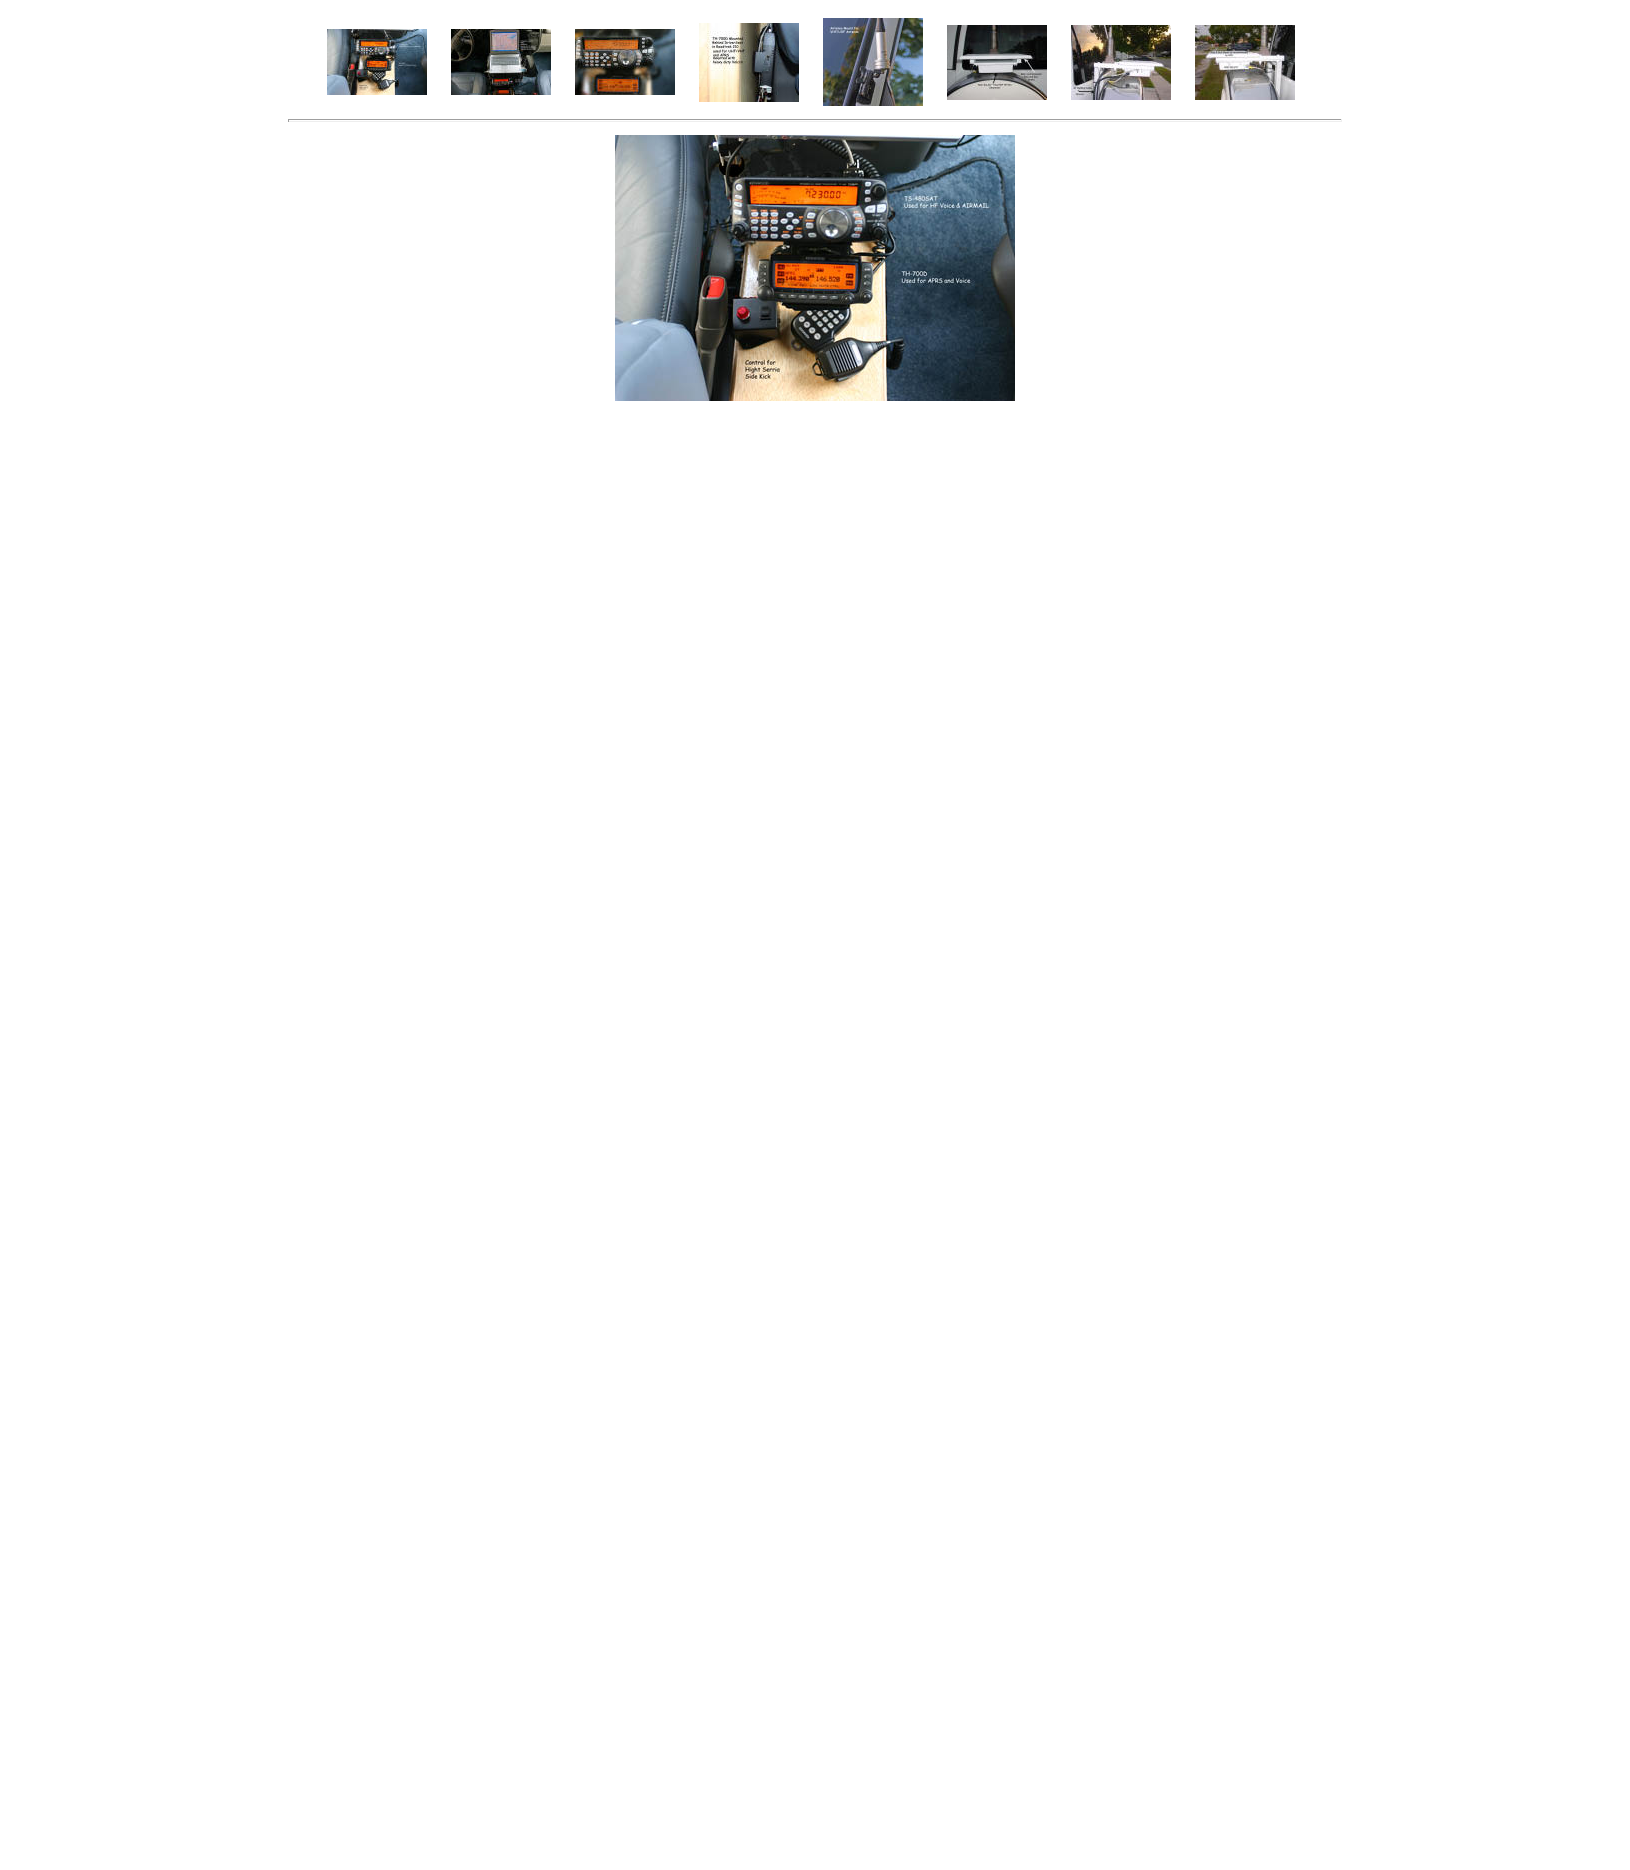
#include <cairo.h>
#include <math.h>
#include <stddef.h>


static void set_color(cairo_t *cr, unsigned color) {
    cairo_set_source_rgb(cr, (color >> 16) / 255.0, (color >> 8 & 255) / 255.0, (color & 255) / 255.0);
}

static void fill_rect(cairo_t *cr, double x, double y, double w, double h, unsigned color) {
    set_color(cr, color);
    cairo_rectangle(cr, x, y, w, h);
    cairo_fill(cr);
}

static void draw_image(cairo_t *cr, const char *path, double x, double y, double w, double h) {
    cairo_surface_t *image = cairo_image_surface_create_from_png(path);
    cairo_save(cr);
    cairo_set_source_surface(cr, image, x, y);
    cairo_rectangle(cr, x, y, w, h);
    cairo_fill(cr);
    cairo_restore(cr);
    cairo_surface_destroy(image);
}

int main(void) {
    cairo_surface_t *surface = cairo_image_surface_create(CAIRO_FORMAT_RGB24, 1630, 1870);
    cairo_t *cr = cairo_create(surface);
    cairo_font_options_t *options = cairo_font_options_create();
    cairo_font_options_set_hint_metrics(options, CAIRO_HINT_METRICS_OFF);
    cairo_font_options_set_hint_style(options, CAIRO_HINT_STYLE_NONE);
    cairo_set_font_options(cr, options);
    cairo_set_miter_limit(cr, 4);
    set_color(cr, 0xFFFFFF);
    cairo_paint(cr);
    draw_image(cr, "assets/img1.png", 327, 29, 100, 66);
    draw_image(cr, "assets/img2.png", 451, 29, 100, 66);
    draw_image(cr, "assets/img3.png", 575, 29, 100, 66);
    draw_image(cr, "assets/img4.png", 699, 23, 100, 79);
    draw_image(cr, "assets/img5.png", 823, 18, 100, 88);
    draw_image(cr, "assets/img6.png", 947, 25, 100, 75);
    draw_image(cr, "assets/img7.png", 1071, 25, 100, 75);
    draw_image(cr, "assets/img8.png", 1195, 25, 100, 75);
    fill_rect(cr, 288, 119, 1054, 1, 0x9F9F9F);
    fill_rect(cr, 1341, 119, 1, 3, 0xEEEEEE);
    fill_rect(cr, 288, 121, 1054, 1, 0xEEEEEE);
    fill_rect(cr, 288, 119, 1, 3, 0x9F9F9F);
    draw_image(cr, "assets/img9.png", 615, 135, 400, 266);
    cairo_surface_write_to_png(surface, "output.png");
    cairo_font_options_destroy(options);
    cairo_destroy(cr);
    cairo_surface_destroy(surface);
    return 0;
}
